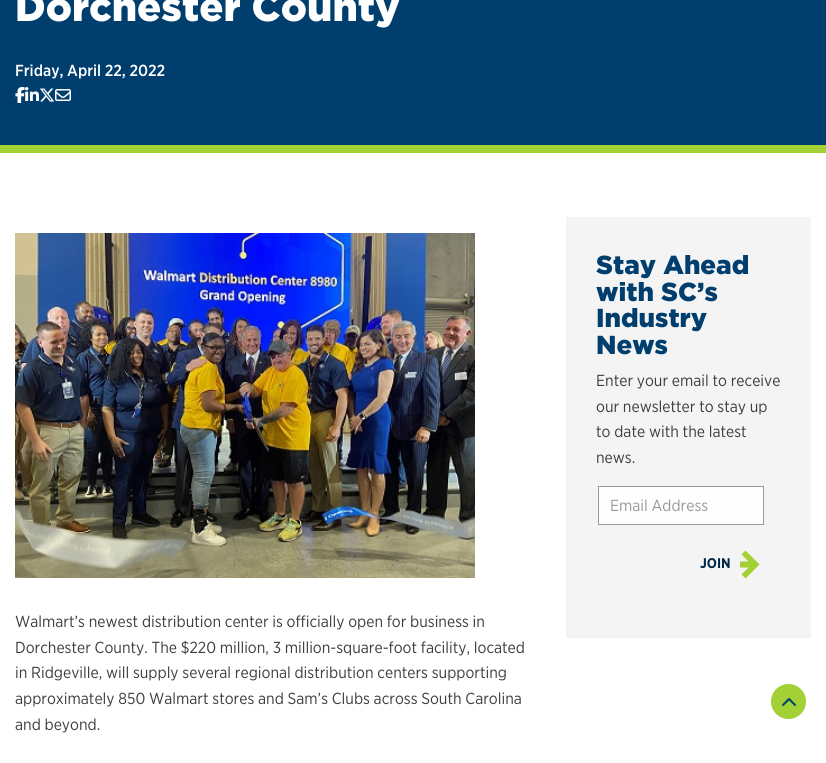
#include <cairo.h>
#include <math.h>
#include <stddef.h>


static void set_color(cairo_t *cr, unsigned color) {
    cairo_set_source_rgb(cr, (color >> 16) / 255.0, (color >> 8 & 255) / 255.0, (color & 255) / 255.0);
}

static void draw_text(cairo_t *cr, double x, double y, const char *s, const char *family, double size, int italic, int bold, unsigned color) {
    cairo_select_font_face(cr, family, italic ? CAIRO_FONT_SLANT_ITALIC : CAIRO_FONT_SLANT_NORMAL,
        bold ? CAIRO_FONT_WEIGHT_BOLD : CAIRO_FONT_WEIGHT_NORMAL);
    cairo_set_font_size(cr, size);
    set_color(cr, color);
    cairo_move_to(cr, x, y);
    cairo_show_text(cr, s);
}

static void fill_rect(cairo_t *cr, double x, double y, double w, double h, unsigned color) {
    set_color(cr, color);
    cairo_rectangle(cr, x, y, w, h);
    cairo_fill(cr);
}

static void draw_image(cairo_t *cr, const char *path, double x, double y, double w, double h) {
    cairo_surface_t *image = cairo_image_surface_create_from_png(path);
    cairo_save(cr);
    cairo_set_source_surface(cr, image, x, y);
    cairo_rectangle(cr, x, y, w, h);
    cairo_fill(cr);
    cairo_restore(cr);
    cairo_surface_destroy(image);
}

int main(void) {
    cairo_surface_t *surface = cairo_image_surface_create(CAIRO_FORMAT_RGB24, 826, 763);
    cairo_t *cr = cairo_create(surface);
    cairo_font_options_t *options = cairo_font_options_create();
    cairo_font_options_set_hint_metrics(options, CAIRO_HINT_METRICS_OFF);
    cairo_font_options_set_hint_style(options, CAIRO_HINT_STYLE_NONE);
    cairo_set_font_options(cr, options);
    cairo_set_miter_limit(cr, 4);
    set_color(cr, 0xFFFFFF);
    cairo_paint(cr);
    fill_rect(cr, 0, 0, 826, 145, 0x003E6E);
    draw_text(cr, 15, 21, "Dorchester County", "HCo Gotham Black", 40, 0, 0, 0xFFFFFF);
    draw_text(cr, 15, 76, "Friday, April 22, 2022", "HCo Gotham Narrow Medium", 16, 0, 0, 0xFFFFFF);
    draw_image(cr, "assets/img1.png", 15, 87, 10, 16);
    draw_image(cr, "assets/img2.png", 25, 87, 14, 14);
    draw_image(cr, "assets/img3.png", 40, 88, 15, 14);
    draw_image(cr, "assets/img4.png", 55, 89, 16, 12);
    fill_rect(cr, 0, 145, 826, 8, 0xA2D035);
    fill_rect(cr, 566, 217, 245, 421, 0xF4F4F4);
    draw_text(cr, 596, 274, "Stay Ahead", "HCo Gotham Black", 26, 0, 0, 0x003E6E);
    draw_text(cr, 596, 301, "with SC’s", "HCo Gotham Black", 26, 0, 0, 0x003E6E);
    draw_text(cr, 596, 327, "Industry", "HCo Gotham Black", 26, 0, 0, 0x003E6E);
    draw_text(cr, 596, 354, "News", "HCo Gotham Black", 26, 0, 0, 0x003E6E);
    draw_text(cr, 596, 386, "Enter your email to receive", "HCo Gotham Narrow", 16, 0, 0, 0x3D3D3D);
    draw_text(cr, 596, 412, "our newsletter to stay up", "HCo Gotham Narrow", 16, 0, 0, 0x3D3D3D);
    draw_text(cr, 596, 437, "to date with the latest", "HCo Gotham Narrow", 16, 0, 0, 0x3D3D3D);
    draw_text(cr, 596, 463, "news.", "HCo Gotham Narrow", 16, 0, 0, 0x3D3D3D);
    set_color(cr, 0xFEFEFE);
    cairo_rectangle(cr, 598.5, 486.5, 165, 38);
    cairo_fill_preserve(cr);
    set_color(cr, 0x999999);
    cairo_set_line_width(cr, 1);
    cairo_stroke(cr);
    draw_text(cr, 610, 511, "Email Address", "HCo Gotham Narrow", 16, 0, 0, 0x999999);
    set_color(cr, 0xA2D035);
    cairo_set_fill_rule(cr, CAIRO_FILL_RULE_EVEN_ODD);
    cairo_new_path(cr);
    cairo_move_to(cr, 745.5, 550.5);
    cairo_line_to(cr, 741.5, 554.5);
    cairo_line_to(cr, 748.5, 561.5);
    cairo_line_to(cr, 740, 561.5);
    cairo_line_to(cr, 740, 567.5);
    cairo_line_to(cr, 748.5, 567.5);
    cairo_line_to(cr, 741.5, 574.5);
    cairo_line_to(cr, 745.5, 578.5);
    cairo_line_to(cr, 759.5, 564.5);
    cairo_close_path(cr);
    cairo_fill(cr);
    draw_text(cr, 700, 568, "JOIN", "HCo Gotham Narrow", 14, 0, 1, 0x002846);
    draw_image(cr, "assets/img5.png", 15, 233, 460, 345);
    draw_text(cr, 15, 627, "Walmart’s newest distribution center is officially open for business in", "HCo Gotham Narrow", 16, 0, 0, 0x3D3D3D);
    draw_text(cr, 15, 653, "Dorchester County. The $220 million, 3 million-square-foot facility, located", "HCo Gotham Narrow", 16, 0, 0, 0x3D3D3D);
    draw_text(cr, 15, 678, "in Ridgeville, will supply several regional distribution centers supporting", "HCo Gotham Narrow", 16, 0, 0, 0x3D3D3D);
    draw_text(cr, 15, 704, "approximately 850 Walmart stores and Sam’s Clubs across South Carolina", "HCo Gotham Narrow", 16, 0, 0, 0x3D3D3D);
    draw_text(cr, 15, 730, "and beyond.", "HCo Gotham Narrow", 16, 0, 0, 0x3D3D3D);
    set_color(cr, 0xA2D035);
    cairo_new_path(cr);
    cairo_arc(cr, 788.5, 701.5, 17.5, 0, 2 * M_PI);
    cairo_fill(cr);
    draw_image(cr, "assets/img6.png", 782, 698, 14, 8);
    cairo_surface_write_to_png(surface, "output.png");
    cairo_font_options_destroy(options);
    cairo_destroy(cr);
    cairo_surface_destroy(surface);
    return 0;
}
